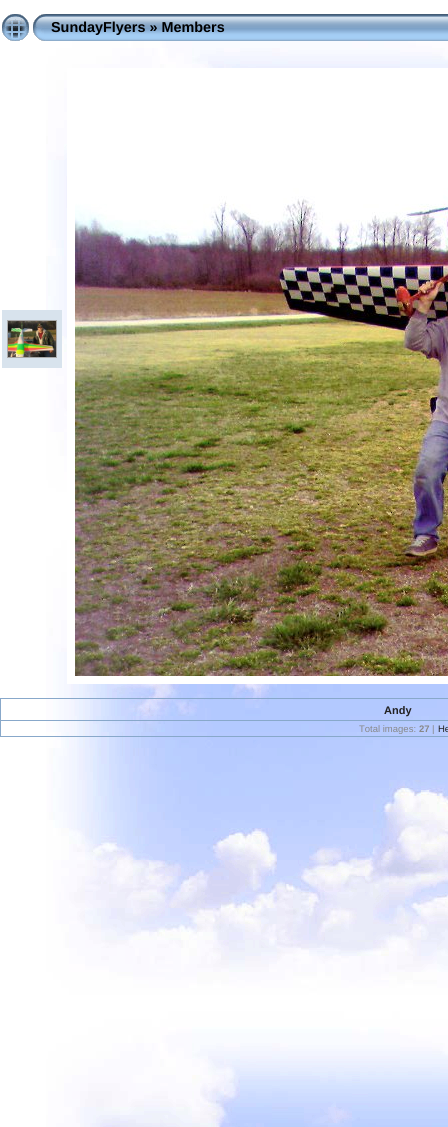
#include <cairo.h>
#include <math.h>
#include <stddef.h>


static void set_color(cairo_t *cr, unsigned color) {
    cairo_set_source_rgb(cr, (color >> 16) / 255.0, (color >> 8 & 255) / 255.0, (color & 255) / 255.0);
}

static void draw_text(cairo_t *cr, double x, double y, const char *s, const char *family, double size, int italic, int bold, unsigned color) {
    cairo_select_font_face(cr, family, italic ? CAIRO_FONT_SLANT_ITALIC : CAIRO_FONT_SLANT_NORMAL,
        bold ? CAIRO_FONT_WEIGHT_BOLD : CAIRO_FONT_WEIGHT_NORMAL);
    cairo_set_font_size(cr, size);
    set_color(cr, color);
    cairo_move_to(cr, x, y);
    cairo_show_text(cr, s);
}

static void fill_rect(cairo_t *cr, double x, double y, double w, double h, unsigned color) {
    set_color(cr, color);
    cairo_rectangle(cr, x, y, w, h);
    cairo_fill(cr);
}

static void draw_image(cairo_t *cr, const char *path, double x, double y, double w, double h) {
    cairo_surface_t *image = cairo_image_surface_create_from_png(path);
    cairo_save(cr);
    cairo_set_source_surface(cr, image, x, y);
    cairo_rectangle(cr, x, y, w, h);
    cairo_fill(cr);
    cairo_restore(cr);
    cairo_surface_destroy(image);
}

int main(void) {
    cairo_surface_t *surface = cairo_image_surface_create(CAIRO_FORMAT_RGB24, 448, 1127);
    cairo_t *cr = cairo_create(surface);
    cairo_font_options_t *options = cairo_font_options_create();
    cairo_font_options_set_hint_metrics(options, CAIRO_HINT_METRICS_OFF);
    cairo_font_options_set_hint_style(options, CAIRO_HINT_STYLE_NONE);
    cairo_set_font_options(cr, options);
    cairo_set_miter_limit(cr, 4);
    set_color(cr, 0xFFFFFF);
    cairo_paint(cr);
    draw_image(cr, "assets/img1.png", 46, 41, 402, 1086);
    draw_image(cr, "assets/img2.png", 2, 14, 27, 27);
    draw_image(cr, "assets/img3.png", 33, 14, 18, 27);
    draw_image(cr, "assets/img4.png", 51, 14, 397, 27);
    draw_text(cr, 51, 32, "SundayFlyers » Members", "Liberation Sans", 14.4, 0, 1, 0x000000);
    fill_rect(cr, 2, 310, 60, 58, 0xD8E3ED);
    cairo_rectangle(cr, 7.5, 320.5, 49, 37);
    set_color(cr, 0xAAAAAA);
    cairo_set_line_width(cr, 1);
    cairo_stroke(cr);
    draw_image(cr, "assets/img5.png", 8, 321, 48, 36);
    cairo_rectangle(cr, 71, 72, 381, 608);
    set_color(cr, 0xFFFFFF);
    cairo_set_line_width(cr, 8);
    cairo_stroke(cr);
    draw_image(cr, "assets/img6.png", 75, 76, 373, 600);
    fill_rect(cr, 0, 698, 448, 1, 0x88A8CA);
    fill_rect(cr, 0, 736, 448, 1, 0x88A8CA);
    fill_rect(cr, 0, 698, 1, 39, 0x88A8CA);
    draw_text(cr, 384, 714, "Andy", "Liberation Sans", 11, 0, 1, 0x222222);
    fill_rect(cr, 0, 720, 448, 1, 0x88A8CA);
    draw_text(cr, 359, 732, "Total images:", "Liberation Sans", 9.5, 0, 0, 0x888888);
    draw_text(cr, 419, 732, "27", "Liberation Sans", 9.5, 0, 1, 0x888888);
    draw_text(cr, 432, 732, "|", "Liberation Sans", 9.5, 0, 0, 0x888888);
    draw_text(cr, 438, 732, "He", "Liberation Sans", 9.5, 0, 0, 0x222222);
    cairo_surface_write_to_png(surface, "output.png");
    cairo_font_options_destroy(options);
    cairo_destroy(cr);
    cairo_surface_destroy(surface);
    return 0;
}
